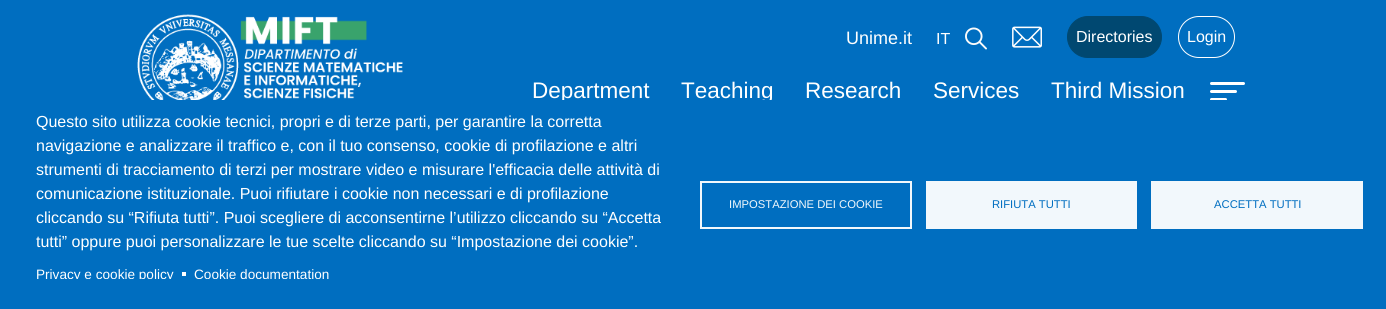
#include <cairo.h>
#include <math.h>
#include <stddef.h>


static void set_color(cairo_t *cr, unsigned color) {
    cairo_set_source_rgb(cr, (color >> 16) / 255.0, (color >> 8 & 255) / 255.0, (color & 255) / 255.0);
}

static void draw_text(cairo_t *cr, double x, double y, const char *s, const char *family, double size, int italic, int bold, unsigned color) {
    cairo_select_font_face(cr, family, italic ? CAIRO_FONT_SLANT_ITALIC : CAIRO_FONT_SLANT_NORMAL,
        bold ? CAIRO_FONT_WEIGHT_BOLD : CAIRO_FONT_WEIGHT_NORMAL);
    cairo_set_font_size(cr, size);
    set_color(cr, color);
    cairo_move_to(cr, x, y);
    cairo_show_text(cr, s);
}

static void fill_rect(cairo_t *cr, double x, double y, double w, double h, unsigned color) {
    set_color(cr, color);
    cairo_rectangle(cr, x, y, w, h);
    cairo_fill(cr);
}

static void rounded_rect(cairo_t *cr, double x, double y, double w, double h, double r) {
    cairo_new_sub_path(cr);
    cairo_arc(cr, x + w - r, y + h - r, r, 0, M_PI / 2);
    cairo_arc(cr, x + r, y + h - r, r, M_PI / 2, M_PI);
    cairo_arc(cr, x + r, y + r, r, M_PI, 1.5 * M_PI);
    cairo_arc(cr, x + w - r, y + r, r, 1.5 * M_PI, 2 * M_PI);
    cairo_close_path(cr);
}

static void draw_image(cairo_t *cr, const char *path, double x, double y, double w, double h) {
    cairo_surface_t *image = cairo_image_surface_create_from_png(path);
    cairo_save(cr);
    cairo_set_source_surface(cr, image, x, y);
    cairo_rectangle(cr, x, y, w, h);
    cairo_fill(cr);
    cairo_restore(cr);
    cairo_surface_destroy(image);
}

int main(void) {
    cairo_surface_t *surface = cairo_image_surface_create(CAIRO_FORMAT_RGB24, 1386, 309);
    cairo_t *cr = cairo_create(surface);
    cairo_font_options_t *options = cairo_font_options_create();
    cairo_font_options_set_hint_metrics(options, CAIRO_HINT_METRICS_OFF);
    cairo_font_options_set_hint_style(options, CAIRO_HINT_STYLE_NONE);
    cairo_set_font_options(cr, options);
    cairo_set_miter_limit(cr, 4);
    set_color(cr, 0x006EC0);
    cairo_paint(cr);
    draw_image(cr, "assets/img1.png", 137, 14, 266, 86);
    draw_text(cr, 846, 44, "Unime.it", "Liberation Sans", 18, 0, 0, 0xFFFFFF);
    draw_text(cr, 936, 44, "IT", "Liberation Sans", 16, 0, 0, 0xFFFFFF);
    draw_image(cr, "assets/img2.png", 965, 27, 22, 23);
    draw_image(cr, "assets/img3.png", 1012, 26, 30, 22);
    set_color(cr, 0x004871);
    rounded_rect(cr, 1067.5, 16.5, 94, 41, 20.5);
    cairo_fill_preserve(cr);
    cairo_set_line_width(cr, 1);
    cairo_stroke(cr);
    draw_text(cr, 1076, 42, "Directories", "Liberation Sans", 16, 0, 0, 0xFFFFFF);
    rounded_rect(cr, 1178.5, 16.5, 56, 41, 20.5);
    cairo_stroke(cr);
    draw_text(cr, 1187, 42, "Login", "Liberation Sans", 16, 0, 0, 0xFFFFFF);
    draw_text(cr, 532, 98, "Department", "Liberation Sans", 22.5, 0, 0, 0xFFFFFF);
    draw_text(cr, 681, 98, "Teaching", "Liberation Sans", 22.5, 0, 0, 0xFFFFFF);
    draw_text(cr, 805, 98, "Research", "Liberation Sans", 22.5, 0, 0, 0xFFFFFF);
    draw_text(cr, 933, 98, "Services", "Liberation Sans", 22.5, 0, 0, 0xFFFFFF);
    draw_text(cr, 1051, 98, "Third Mission", "Liberation Sans", 22.5, 0, 0, 0xFFFFFF);
    rounded_rect(cr, 1210, 90, 27, 3, 1.5);
    cairo_fill(cr);
    rounded_rect(cr, 1210, 82, 35, 3, 1.5);
    cairo_fill(cr);
    rounded_rect(cr, 1210, 98, 17, 3, 1.5);
    cairo_fill(cr);
    fill_rect(cr, 562, 100, 665, 3, 0x006EC0);
    draw_text(cr, 36, 127, "Questo sito utilizza cookie tecnici, propri e di terze parti, per garantire la corretta", "Liberation Sans", 16, 0, 0, 0xFFFFFF);
    draw_text(cr, 36, 151, "navigazione e analizzare il traffico e, con il tuo consenso, cookie di profilazione e altri", "Liberation Sans", 16, 0, 0, 0xFFFFFF);
    draw_text(cr, 36, 175, "strumenti di tracciamento di terzi per mostrare video e misurare l'efficacia delle attività di", "Liberation Sans", 16, 0, 0, 0xFFFFFF);
    draw_text(cr, 36, 199, "comunicazione istituzionale. Puoi rifiutare i cookie non necessari e di profilazione", "Liberation Sans", 16, 0, 0, 0xFFFFFF);
    draw_text(cr, 36, 223, "cliccando su “Rifiuta tutti”. Puoi scegliere di acconsentirne l’utilizzo cliccando su “Accetta", "Liberation Sans", 16, 0, 0, 0xFFFFFF);
    draw_text(cr, 36, 247, "tutti” oppure puoi personalizzare le tue scelte cliccando su “Impostazione dei cookie”.", "Liberation Sans", 16, 0, 0, 0xFFFFFF);
    cairo_save(cr);
    cairo_rectangle(cr, 16, 110, 677, 169);
    cairo_clip(cr);
    draw_text(cr, 36, 279, "Privacy e cookie policy", "Liberation Sans", 13.6, 0, 0, 0xFFFFFF);
    cairo_restore(cr);
    fill_rect(cr, 182, 272, 4, 4, 0xFFFFFF);
    cairo_save(cr);
    cairo_rectangle(cr, 16, 110, 677, 169);
    cairo_clip(cr);
    draw_text(cr, 194, 279, "Cookie documentation", "Liberation Sans", 13.6, 0, 0, 0xFFFFFF);
    cairo_restore(cr);
    cairo_rectangle(cr, 701, 182, 210, 46);
    set_color(cr, 0xF2F8FC);
    cairo_set_line_width(cr, 2);
    cairo_stroke(cr);
    draw_text(cr, 729, 208, "IMPOSTAZIONE DEI COOKIE", "Liberation Sans", 11.25, 0, 0, 0xF2F8FC);
    fill_rect(cr, 926, 181, 211, 48, 0xF2F8FC);
    draw_text(cr, 992, 208, "RIFIUTA TUTTI", "Liberation Sans", 11.25, 0, 0, 0x006EC0);
    fill_rect(cr, 1151, 181, 212, 48, 0xF2F8FC);
    draw_text(cr, 1214, 208, "ACCETTA TUTTI", "Liberation Sans", 11.25, 0, 0, 0x006EC0);
    cairo_surface_write_to_png(surface, "output.png");
    cairo_font_options_destroy(options);
    cairo_destroy(cr);
    cairo_surface_destroy(surface);
    return 0;
}
